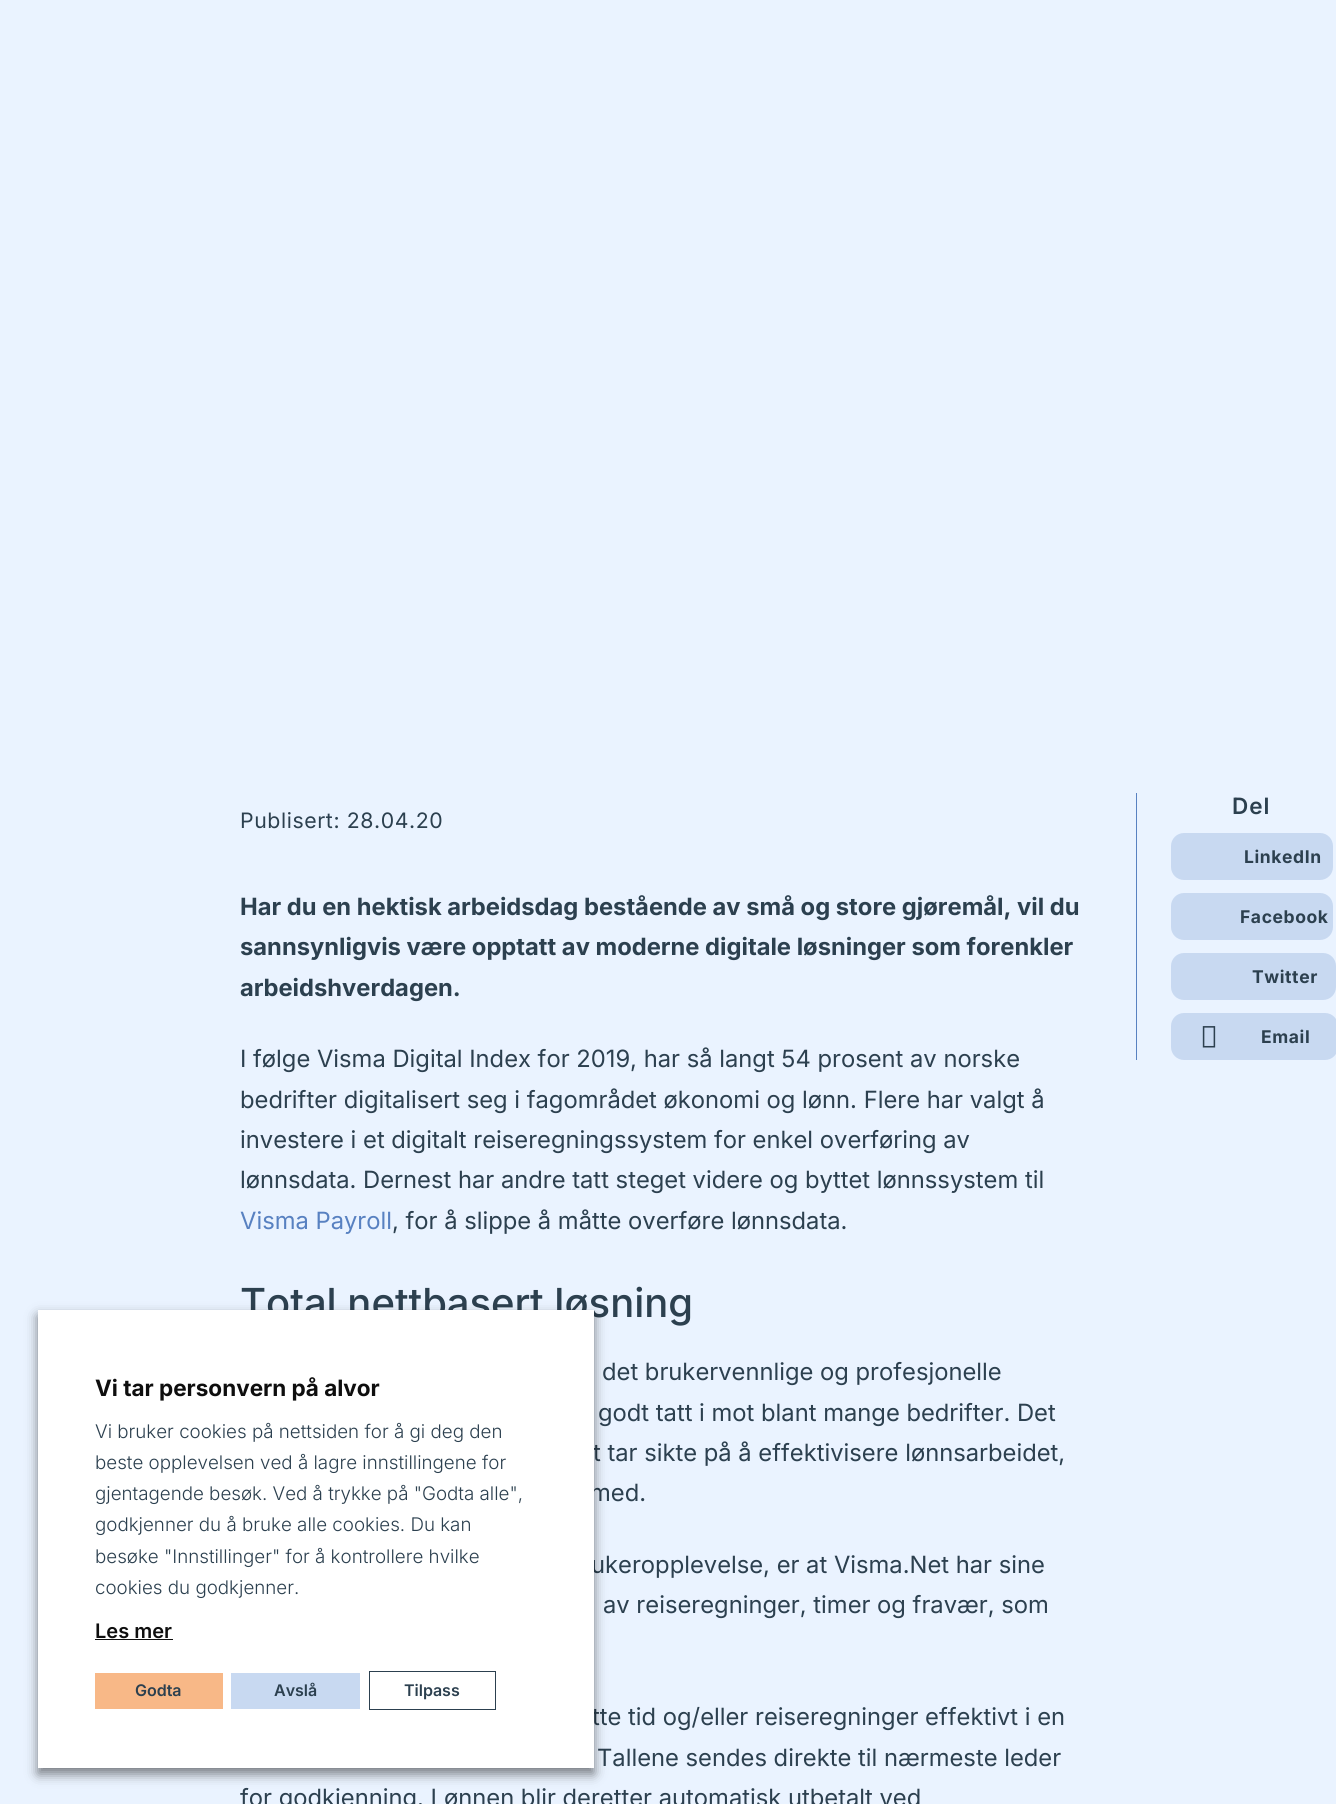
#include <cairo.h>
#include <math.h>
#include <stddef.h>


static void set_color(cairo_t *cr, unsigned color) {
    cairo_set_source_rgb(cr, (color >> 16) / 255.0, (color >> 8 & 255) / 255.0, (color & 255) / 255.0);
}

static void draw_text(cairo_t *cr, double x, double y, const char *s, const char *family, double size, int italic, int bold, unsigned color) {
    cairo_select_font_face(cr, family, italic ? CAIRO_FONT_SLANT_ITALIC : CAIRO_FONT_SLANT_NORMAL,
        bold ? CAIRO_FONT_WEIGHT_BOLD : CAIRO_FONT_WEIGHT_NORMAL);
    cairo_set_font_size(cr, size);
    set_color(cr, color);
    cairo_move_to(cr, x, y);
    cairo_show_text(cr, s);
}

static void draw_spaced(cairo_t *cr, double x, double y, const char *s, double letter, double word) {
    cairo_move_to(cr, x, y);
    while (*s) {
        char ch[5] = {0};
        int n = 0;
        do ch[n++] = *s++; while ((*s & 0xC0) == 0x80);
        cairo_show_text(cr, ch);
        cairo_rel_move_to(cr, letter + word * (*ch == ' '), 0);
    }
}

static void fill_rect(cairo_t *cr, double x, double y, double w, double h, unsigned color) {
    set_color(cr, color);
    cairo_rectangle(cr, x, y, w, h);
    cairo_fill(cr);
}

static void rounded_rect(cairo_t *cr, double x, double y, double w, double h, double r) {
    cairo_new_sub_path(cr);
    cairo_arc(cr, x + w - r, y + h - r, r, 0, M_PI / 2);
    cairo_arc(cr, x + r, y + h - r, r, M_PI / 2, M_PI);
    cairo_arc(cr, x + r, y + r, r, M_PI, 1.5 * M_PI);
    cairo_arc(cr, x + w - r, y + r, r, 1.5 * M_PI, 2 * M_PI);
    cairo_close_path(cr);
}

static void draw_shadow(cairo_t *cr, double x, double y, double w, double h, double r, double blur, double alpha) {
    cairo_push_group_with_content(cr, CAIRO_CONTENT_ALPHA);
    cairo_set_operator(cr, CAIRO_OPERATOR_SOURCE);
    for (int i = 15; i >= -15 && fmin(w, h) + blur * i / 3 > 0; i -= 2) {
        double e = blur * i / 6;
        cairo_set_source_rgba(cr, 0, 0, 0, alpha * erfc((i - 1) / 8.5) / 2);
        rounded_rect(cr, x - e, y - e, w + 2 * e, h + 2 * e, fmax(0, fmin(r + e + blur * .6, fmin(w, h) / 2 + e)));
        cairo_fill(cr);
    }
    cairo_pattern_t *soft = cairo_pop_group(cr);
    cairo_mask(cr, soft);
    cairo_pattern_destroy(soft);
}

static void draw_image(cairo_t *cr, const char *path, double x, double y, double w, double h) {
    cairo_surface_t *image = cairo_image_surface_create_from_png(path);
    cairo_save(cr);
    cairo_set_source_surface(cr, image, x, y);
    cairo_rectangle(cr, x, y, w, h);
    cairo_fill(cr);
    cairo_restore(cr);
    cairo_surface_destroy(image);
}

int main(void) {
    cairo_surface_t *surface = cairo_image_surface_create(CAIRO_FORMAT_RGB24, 1336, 1804);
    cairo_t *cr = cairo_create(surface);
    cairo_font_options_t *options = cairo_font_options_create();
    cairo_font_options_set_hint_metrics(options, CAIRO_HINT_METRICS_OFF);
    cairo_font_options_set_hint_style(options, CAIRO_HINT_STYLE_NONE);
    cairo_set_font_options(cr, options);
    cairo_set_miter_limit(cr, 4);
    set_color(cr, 0xEAF3FF);
    cairo_paint(cr);
    cairo_select_font_face(cr, "Inter", CAIRO_FONT_SLANT_NORMAL, CAIRO_FONT_WEIGHT_NORMAL);
    cairo_set_font_size(cr, 21.25);
    set_color(cr, 0x2C404F);
    draw_spaced(cr, 240, 828, "Publisert: 28.04.20", 0.6, 0);
    draw_text(cr, 240, 915, "Har du en hektisk arbeidsdag bestående av små og store gjøremål, vil du", "Inter", 23.75, 0, 1, 0x2C404F);
    draw_text(cr, 240, 955, "sannsynligvis være opptatt av moderne digitale løsninger som forenkler", "Inter", 23.75, 0, 1, 0x2C404F);
    draw_text(cr, 240, 996, "arbeidshverdagen.", "Inter", 23.75, 0, 1, 0x2C404F);
    draw_text(cr, 240, 1067, "I følge Visma Digital Index for 2019, har så langt 54 prosent av norske", "Inter", 23.75, 0, 0, 0x2C404F);
    draw_text(cr, 240, 1108, "bedrifter digitalisert seg i fagområdet økonomi og lønn. Flere har valgt å", "Inter", 23.75, 0, 0, 0x2C404F);
    draw_text(cr, 240, 1148, "investere i et digitalt reiseregningssystem for enkel overføring av", "Inter", 23.75, 0, 0, 0x2C404F);
    draw_text(cr, 240, 1188, "lønnsdata. Dernest har andre tatt steget videre og byttet lønnssystem til", "Inter", 23.75, 0, 0, 0x2C404F);
    draw_text(cr, 240, 1229, "Visma Payroll", "Inter", 23.75, 0, 0, 0x5881C1);
    draw_text(cr, 392, 1229, ", for å slippe å måtte overføre lønnsdata.", "Inter", 23.75, 0, 0, 0x2C404F);
    draw_text(cr, 240, 1317, "Total nettbasert løsning", "Inter Medium", 40, 0, 0, 0x2C404F);
    draw_text(cr, 602, 1380, "det brukervennlige og profesjonelle", "Inter", 23.75, 0, 0, 0x2C404F);
    draw_text(cr, 598, 1421, "godt tatt i mot blant mange bedrifter. Det", "Inter", 23.75, 0, 0, 0x2C404F);
    draw_text(cr, 593, 1461, "t tar sikte på å effektivisere lønnsarbeidet,", "Inter", 23.75, 0, 0, 0x2C404F);
    draw_text(cr, 590, 1501, "med.", "Inter", 23.75, 0, 0, 0x2C404F);
    draw_text(cr, 591, 1573, "ukeropplevelse, er at Visma.Net har sine", "Inter", 23.75, 0, 0, 0x2C404F);
    draw_text(cr, 603, 1613, "av reiseregninger, timer og fravær, som", "Inter", 23.75, 0, 0, 0x2C404F);
    draw_text(cr, 592, 1725, "tte tid og/eller reiseregninger effektivt i en", "Inter", 23.75, 0, 0, 0x2C404F);
    draw_text(cr, 597, 1766, "Tallene sendes direkte til nærmeste leder", "Inter", 23.75, 0, 0, 0x2C404F);
    draw_text(cr, 240, 1806, "for godkjenning. Lønnen blir deretter automatisk utbetalt ved", "Inter", 23.75, 0, 0, 0x2C404F);
    fill_rect(cr, 1136, 793, 1, 267, 0x5881C1);
    cairo_select_font_face(cr, "Inter SemiBold", CAIRO_FONT_SLANT_NORMAL, CAIRO_FONT_WEIGHT_NORMAL);
    cairo_set_font_size(cr, 22.5);
    set_color(cr, 0x2C404F);
    draw_spaced(cr, 1232, 814, "Del", 1, 0);
    set_color(cr, 0xC8D9F1);
    rounded_rect(cr, 1171, 833, 162, 47, 13);
    cairo_fill(cr);
    cairo_select_font_face(cr, "Inter", CAIRO_FONT_SLANT_NORMAL, CAIRO_FONT_WEIGHT_BOLD);
    cairo_set_font_size(cr, 17.5);
    set_color(cr, 0x2C404F);
    draw_spaced(cr, 1244, 863, "LinkedIn", 0.6, 0);
    set_color(cr, 0xC8D9F1);
    rounded_rect(cr, 1171, 893, 162, 47, 13);
    cairo_fill(cr);
    set_color(cr, 0x2C404F);
    draw_spaced(cr, 1240, 923, "Facebook", 0.6, 0);
    set_color(cr, 0xC8D9F1);
    rounded_rect(cr, 1171, 953, 165, 47, 13);
    cairo_fill(cr);
    set_color(cr, 0x2C404F);
    draw_spaced(cr, 1252, 983, "Twitter", 0.6, 0);
    set_color(cr, 0xC8D9F1);
    rounded_rect(cr, 1171, 1013, 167, 47, 13);
    cairo_fill(cr);
    draw_image(cr, "assets/img1.png", 1202, 1026, 14, 22);
    set_color(cr, 0x2C404F);
    draw_spaced(cr, 1261, 1043, "Email", 0.6, 0);
    set_color(cr, 0x000000);
    draw_shadow(cr, 38, 1316, 556, 458, 0, 6, 0.5);
    fill_rect(cr, 38, 1310, 556, 458, 0xFFFFFF);
    draw_text(cr, 95, 1396, "Vi tar personvern på alvor", "Inter", 22.5, 0, 1, 0x0E0E0E);
    draw_text(cr, 95, 1438, "Vi bruker cookies på nettsiden for å gi deg den", "Inter Light", 18.75, 0, 0, 0x2C404F);
    draw_text(cr, 95, 1469, "beste opplevelsen ved å lagre innstillingene for", "Inter Light", 18.75, 0, 0, 0x2C404F);
    draw_text(cr, 95, 1500, "gjentagende besøk. Ved å trykke på \"Godta alle\",", "Inter Light", 18.75, 0, 0, 0x2C404F);
    draw_text(cr, 95, 1531, "godkjenner du å bruke alle cookies. Du kan", "Inter Light", 18.75, 0, 0, 0x2C404F);
    draw_text(cr, 95, 1563, "besøke \"Innstillinger\" for å kontrollere hvilke", "Inter Light", 18.75, 0, 0, 0x2C404F);
    draw_text(cr, 95, 1594, "cookies du godkjenner.", "Inter Light", 18.75, 0, 0, 0x2C404F);
    draw_text(cr, 95, 1638, "Les mer", "Inter SemiBold", 20, 0, 0, 0x0E0E0E);
    fill_rect(cr, 95, 1639, 78, 1, 0x0E0E0E);
    fill_rect(cr, 95, 1673, 128, 36, 0xF8B887);
    draw_text(cr, 135, 1696, "Godta", "Inter SemiBold", 16, 0, 0, 0x2C404F);
    fill_rect(cr, 231, 1673, 129, 36, 0xC8D9F1);
    draw_text(cr, 274, 1696, "Avslå", "Inter SemiBold", 16, 0, 0, 0x2C404F);
    cairo_rectangle(cr, 369.5, 1671.5, 126, 38);
    cairo_set_line_width(cr, 1);
    cairo_stroke(cr);
    draw_text(cr, 404, 1696, "Tilpass", "Inter SemiBold", 16, 0, 0, 0x2C404F);
    cairo_surface_write_to_png(surface, "output.png");
    cairo_font_options_destroy(options);
    cairo_destroy(cr);
    cairo_surface_destroy(surface);
    return 0;
}
